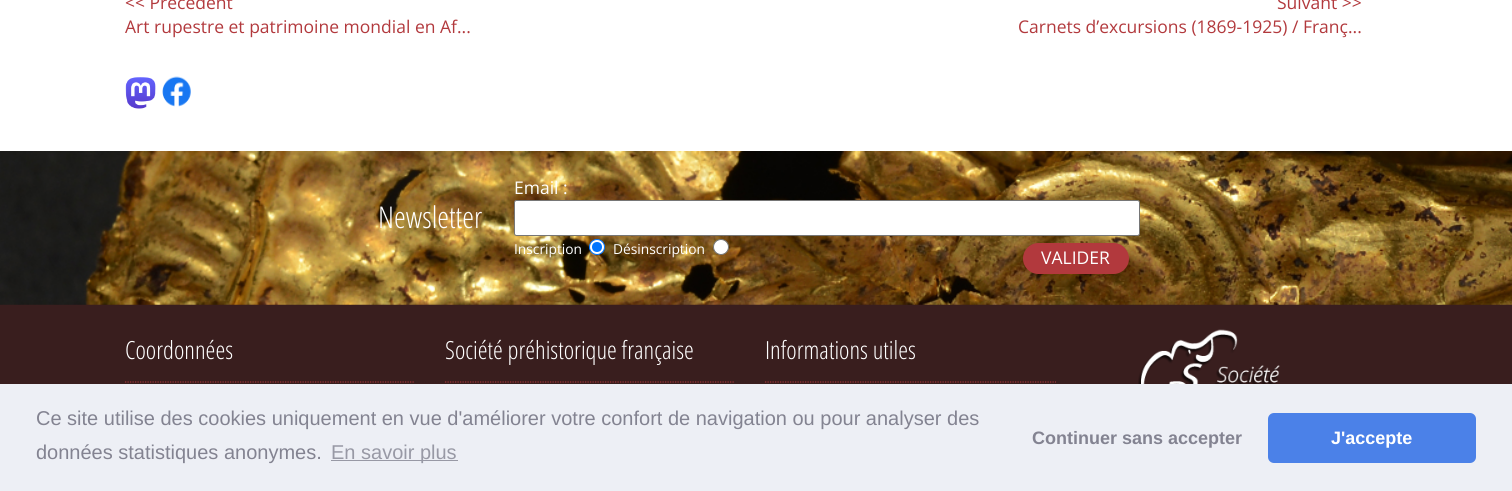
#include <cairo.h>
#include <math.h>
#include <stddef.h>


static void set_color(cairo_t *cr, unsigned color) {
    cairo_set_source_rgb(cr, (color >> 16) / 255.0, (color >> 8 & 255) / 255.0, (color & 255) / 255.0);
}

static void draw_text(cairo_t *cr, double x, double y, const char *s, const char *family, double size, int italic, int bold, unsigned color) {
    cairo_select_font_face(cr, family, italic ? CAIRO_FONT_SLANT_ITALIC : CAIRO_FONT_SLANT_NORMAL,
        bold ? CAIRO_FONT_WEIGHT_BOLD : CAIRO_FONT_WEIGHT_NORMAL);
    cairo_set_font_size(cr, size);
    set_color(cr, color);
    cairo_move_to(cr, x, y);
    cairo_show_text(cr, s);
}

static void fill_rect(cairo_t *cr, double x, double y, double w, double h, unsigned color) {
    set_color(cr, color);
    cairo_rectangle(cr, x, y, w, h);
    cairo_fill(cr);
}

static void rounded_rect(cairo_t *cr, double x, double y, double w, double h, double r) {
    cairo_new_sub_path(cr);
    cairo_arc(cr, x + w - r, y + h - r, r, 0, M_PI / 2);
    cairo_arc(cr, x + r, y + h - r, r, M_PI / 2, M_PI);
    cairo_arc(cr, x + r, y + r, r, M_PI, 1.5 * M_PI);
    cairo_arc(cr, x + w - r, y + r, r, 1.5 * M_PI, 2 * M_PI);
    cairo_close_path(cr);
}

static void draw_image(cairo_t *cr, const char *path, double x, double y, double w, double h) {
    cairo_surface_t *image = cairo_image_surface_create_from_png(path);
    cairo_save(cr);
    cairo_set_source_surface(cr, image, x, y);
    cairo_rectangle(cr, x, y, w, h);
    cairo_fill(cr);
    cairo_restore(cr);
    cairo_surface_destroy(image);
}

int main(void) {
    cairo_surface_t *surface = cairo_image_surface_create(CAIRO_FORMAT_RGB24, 1512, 491);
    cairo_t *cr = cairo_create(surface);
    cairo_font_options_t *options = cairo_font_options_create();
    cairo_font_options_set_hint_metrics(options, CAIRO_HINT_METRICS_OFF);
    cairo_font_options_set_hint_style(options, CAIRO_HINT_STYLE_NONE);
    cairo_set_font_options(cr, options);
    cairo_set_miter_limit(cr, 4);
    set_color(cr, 0xFFFFFF);
    cairo_paint(cr);
    draw_text(cr, 125, 9, "<< Précédent", "Open Sans", 17.5, 0, 0, 0xB2393D);
    draw_text(cr, 125, 33, "Art rupestre et patrimoine mondial en Af...", "Open Sans", 17.5, 0, 0, 0xB2393D);
    draw_text(cr, 1277, 9, "Suivant >>", "Open Sans", 17.5, 0, 0, 0xB2393D);
    draw_text(cr, 1018, 33, "Carnets d’excursions (1869-1925) / Franç...", "Open Sans", 17.5, 0, 0, 0xB2393D);
    draw_image(cr, "assets/img1.png", 125, 77, 31, 32);
    draw_image(cr, "assets/img2.png", 162, 76, 29, 31);
    fill_rect(cr, 0, 304, 1512, 80, 0x391E1E);
    draw_image(cr, "assets/img3.png", 0, 151, 1512, 154);
    draw_text(cr, 378, 228, "Newsletter", "Open Sans Condensed Light", 30, 0, 0, 0xFFFFFF);
    draw_text(cr, 514, 194, "Email :", "Open Sans", 17.5, 0, 0, 0xFFFFFF);
    rounded_rect(cr, 514.5, 200.5, 625, 35, 2);
    cairo_fill_preserve(cr);
    set_color(cr, 0x767676);
    cairo_set_line_width(cr, 1);
    cairo_stroke(cr);
    draw_text(cr, 514, 254, "Inscription", "Open Sans", 13.75, 0, 0, 0xFFFFFF);
    cairo_new_path(cr);
    cairo_arc(cr, 597, 247, 7.5, 0, 2 * M_PI);
    cairo_fill_preserve(cr);
    set_color(cr, 0x0075FF);
    cairo_stroke(cr);
    cairo_arc(cr, 597, 247, 5, 0, 2 * M_PI);
    cairo_fill(cr);
    draw_text(cr, 613, 254, "Désinscription", "Open Sans", 13.75, 0, 0, 0xFFFFFF);
    cairo_new_path(cr);
    cairo_arc(cr, 721, 247, 7.5, 0, 2 * M_PI);
    cairo_fill_preserve(cr);
    set_color(cr, 0x767676);
    cairo_stroke(cr);
    set_color(cr, 0xB2393D);
    rounded_rect(cr, 1023, 243, 106, 31, 15.5);
    cairo_fill(cr);
    draw_text(cr, 1041, 264, "VALIDER", "Open Sans", 17.5, 0, 0, 0xFFFFFF);
    cairo_new_path(cr);
    cairo_move_to(cr, 125, 382);
    cairo_line_to(cr, 415, 382);
    set_color(cr, 0xA03539);
    cairo_set_line_width(cr, 1.2);
    cairo_set_dash(cr, (double[]){1.25, 1.25}, 2, 0);
    cairo_stroke(cr);
    draw_text(cr, 125, 359, "Coordonnées", "Open Sans Condensed Light", 25, 0, 0, 0xFFFFFF);
    cairo_new_path(cr);
    cairo_move_to(cr, 445, 382);
    cairo_line_to(cr, 735, 382);
    set_color(cr, 0xA03539);
    cairo_stroke(cr);
    draw_text(cr, 445, 359, "Société préhistorique française", "Open Sans Condensed Light", 25, 0, 0, 0xFFFFFF);
    cairo_new_path(cr);
    cairo_move_to(cr, 765, 382);
    cairo_line_to(cr, 1056, 382);
    set_color(cr, 0xA03539);
    cairo_stroke(cr);
    draw_text(cr, 765, 359, "Informations utiles", "Open Sans Condensed Light", 25, 0, 0, 0xFFFFFF);
    draw_image(cr, "assets/img4.png", 1138, 329, 142, 55);
    fill_rect(cr, 0, 384, 1512, 107, 0xEDEFF5);
    draw_text(cr, 36, 425, "Ce site utilise des cookies uniquement en vue d'améliorer votre confort de navigation ou pour analyser des", "Liberation Sans", 20, 0, 0, 0x838391);
    draw_text(cr, 36, 459, "données statistiques anonymes.", "Liberation Sans", 20, 0, 0, 0x838391);
    fill_rect(cr, 331, 460, 127, 1, 0x9899A5);
    draw_text(cr, 331, 459, "En savoir plus", "Liberation Sans", 20, 0, 0, 0x9899A5);
    draw_text(cr, 1032, 444, "Continuer sans accepter", "Liberation Sans", 18, 0, 1, 0x838391);
    set_color(cr, 0x4B81E8);
    rounded_rect(cr, 1268, 413, 208, 50, 6);
    cairo_fill(cr);
    draw_text(cr, 1331, 444, "J'accepte", "Liberation Sans", 18, 0, 1, 0xFFFFFF);
    cairo_surface_write_to_png(surface, "output.png");
    cairo_font_options_destroy(options);
    cairo_destroy(cr);
    cairo_surface_destroy(surface);
    return 0;
}
